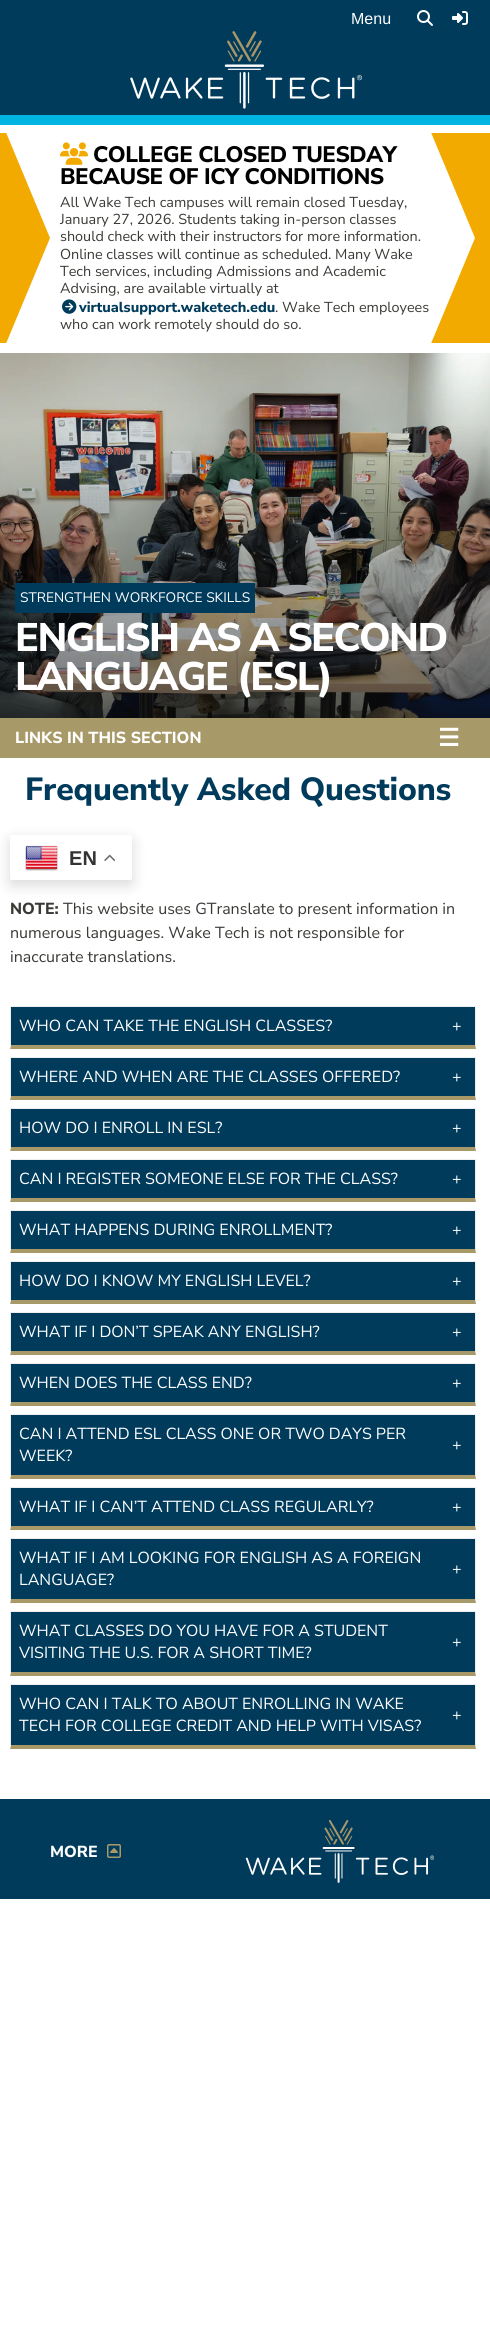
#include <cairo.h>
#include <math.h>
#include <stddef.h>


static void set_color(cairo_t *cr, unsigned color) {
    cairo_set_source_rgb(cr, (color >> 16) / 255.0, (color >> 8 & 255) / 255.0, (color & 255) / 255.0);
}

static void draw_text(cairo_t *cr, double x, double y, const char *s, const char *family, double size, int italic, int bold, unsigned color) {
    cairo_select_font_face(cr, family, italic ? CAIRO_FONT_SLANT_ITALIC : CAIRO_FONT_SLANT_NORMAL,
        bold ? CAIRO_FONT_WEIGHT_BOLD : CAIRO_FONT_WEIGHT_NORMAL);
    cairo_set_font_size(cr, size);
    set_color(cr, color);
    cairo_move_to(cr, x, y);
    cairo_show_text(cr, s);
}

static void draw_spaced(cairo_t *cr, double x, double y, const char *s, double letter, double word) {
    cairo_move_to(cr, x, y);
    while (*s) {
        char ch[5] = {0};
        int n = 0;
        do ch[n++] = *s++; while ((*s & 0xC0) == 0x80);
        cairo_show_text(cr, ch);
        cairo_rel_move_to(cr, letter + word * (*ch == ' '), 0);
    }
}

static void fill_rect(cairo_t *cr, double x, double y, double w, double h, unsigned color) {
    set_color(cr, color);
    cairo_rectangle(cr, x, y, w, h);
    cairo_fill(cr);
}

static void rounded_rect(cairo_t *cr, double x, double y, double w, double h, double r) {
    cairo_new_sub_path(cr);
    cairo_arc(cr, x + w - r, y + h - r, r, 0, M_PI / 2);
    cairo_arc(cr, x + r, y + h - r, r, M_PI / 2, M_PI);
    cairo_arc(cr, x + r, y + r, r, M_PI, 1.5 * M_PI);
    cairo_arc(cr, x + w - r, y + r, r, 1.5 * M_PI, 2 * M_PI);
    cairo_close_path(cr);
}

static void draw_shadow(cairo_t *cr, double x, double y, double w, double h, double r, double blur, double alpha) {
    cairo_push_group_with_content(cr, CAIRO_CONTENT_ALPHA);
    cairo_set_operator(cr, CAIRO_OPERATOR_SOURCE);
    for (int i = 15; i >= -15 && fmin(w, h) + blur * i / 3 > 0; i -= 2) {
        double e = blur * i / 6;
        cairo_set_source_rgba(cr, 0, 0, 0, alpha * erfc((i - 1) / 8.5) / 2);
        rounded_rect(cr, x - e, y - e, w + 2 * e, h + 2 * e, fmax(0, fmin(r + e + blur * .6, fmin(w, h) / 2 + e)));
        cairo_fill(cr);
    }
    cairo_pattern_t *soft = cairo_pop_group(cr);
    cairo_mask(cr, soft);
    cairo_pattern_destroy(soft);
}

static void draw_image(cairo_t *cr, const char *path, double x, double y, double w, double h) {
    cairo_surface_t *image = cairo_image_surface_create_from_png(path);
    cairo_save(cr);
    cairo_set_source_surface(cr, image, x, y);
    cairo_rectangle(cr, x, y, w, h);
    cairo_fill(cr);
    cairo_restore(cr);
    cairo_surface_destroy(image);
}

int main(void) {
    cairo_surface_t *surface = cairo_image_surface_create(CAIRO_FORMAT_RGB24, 490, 2335);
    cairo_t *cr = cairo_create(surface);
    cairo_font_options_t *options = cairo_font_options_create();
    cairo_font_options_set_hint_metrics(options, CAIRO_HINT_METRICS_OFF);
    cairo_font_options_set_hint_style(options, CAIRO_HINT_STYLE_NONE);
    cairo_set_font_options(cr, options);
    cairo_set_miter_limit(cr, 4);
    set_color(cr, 0xFFFFFF);
    cairo_paint(cr);
    fill_rect(cr, 0, 0, 490, 115, 0x003B5C);
    fill_rect(cr, 0, 115, 490, 10, 0x00B5E2);
    draw_text(cr, 351, 24, "Menu", "Liberation Sans", 16, 0, 0, 0xFFFFFF);
    draw_image(cr, "assets/img1.png", 417, 10, 16, 16);
    draw_image(cr, "assets/img2.png", 452, 11, 16, 14);
    draw_image(cr, "assets/img3.png", 130, 31, 232, 78);
    cairo_save(cr);
    cairo_rectangle(cr, 0, 133, 490, 210);
    cairo_clip(cr);
    set_color(cr, 0xF2A900);
    cairo_new_path(cr);
    cairo_move_to(cr, 0, 358);
    cairo_line_to(cr, 0, 118);
    cairo_line_to(cr, 50, 238);
    cairo_close_path(cr);
    cairo_fill(cr);
    cairo_restore(cr);
    draw_image(cr, "assets/img4.png", 60, 142, 28, 23);
    cairo_select_font_face(cr, "Nunito Sans ExtraBold", CAIRO_FONT_SLANT_NORMAL, CAIRO_FONT_WEIGHT_NORMAL);
    cairo_set_font_size(cr, 22.4);
    set_color(cr, 0x000000);
    draw_spaced(cr, 93, 162, "COLLEGE CLOSED TUESDAY", -0.45, 0);
    draw_spaced(cr, 60, 184, "BECAUSE OF ICY CONDITIONS", -0.45, 0);
    draw_text(cr, 60, 207, "All Wake Tech campuses will remain closed Tuesday,", "Nunito Sans", 14.4, 0, 0, 0x393935);
    draw_text(cr, 60, 224, "January 27, 2026. Students taking in-person classes", "Nunito Sans", 14.4, 0, 0, 0x393935);
    draw_text(cr, 60, 241, "should check with their instructors for more information.", "Nunito Sans", 14.4, 0, 0, 0x393935);
    draw_text(cr, 60, 259, "Online classes will continue as scheduled. Many Wake", "Nunito Sans", 14.4, 0, 0, 0x393935);
    draw_text(cr, 60, 276, "Tech services, including Admissions and Academic", "Nunito Sans", 14.4, 0, 0, 0x393935);
    draw_text(cr, 60, 293, "Advising, are available virtually at", "Nunito Sans", 14.4, 0, 0, 0x393935);
    draw_image(cr, "assets/img5.png", 62, 299, 15, 15);
    draw_text(cr, 79, 312, "virtualsupport.waketech.edu", "Nunito Sans ExtraBold", 14.4, 0, 0, 0x003B5C);
    draw_text(cr, 275, 312, ". Wake Tech employees", "Nunito Sans", 14.4, 0, 0, 0x393935);
    draw_text(cr, 60, 329, "who can work remotely should do so.", "Nunito Sans", 14.4, 0, 0, 0x393935);
    cairo_save(cr);
    cairo_rectangle(cr, 0, 133, 490, 210);
    cairo_clip(cr);
    set_color(cr, 0xF2A900);
    cairo_new_path(cr);
    cairo_move_to(cr, 425, 118);
    cairo_line_to(cr, 490, 118);
    cairo_line_to(cr, 490, 238);
    cairo_line_to(cr, 475, 238);
    cairo_close_path(cr);
    cairo_fill(cr);
    cairo_new_path(cr);
    cairo_move_to(cr, 490, 358);
    cairo_line_to(cr, 425, 358);
    cairo_line_to(cr, 475, 238);
    cairo_line_to(cr, 490, 238);
    cairo_close_path(cr);
    cairo_fill(cr);
    cairo_restore(cr);
    draw_image(cr, "assets/img6.png", 0, 353, 490, 365);
    fill_rect(cr, 15, 583, 240, 30, 0x003B5C);
    draw_text(cr, 20, 602, "STRENGTHEN WORKFORCE SKILLS", "Nunito Sans", 13.75, 0, 0, 0xFFFFFF);
    cairo_select_font_face(cr, "Nunito Sans ExtraBold", CAIRO_FONT_SLANT_NORMAL, CAIRO_FONT_WEIGHT_NORMAL);
    cairo_set_font_size(cr, 39.75);
    draw_spaced(cr, 15, 651, "ENGLISH AS A SECOND", -1.6, 0);
    draw_spaced(cr, 15, 690, "LANGUAGE (ESL)", -1.6, 0);
    fill_rect(cr, 0, 718, 490, 40, 0xA89968);
    cairo_set_font_size(cr, 16);
    set_color(cr, 0xFFFFFF);
    draw_spaced(cr, 15, 743, "LINKS IN THIS SECTION", 0.05, 0);
    cairo_select_font_face(cr, "DejaVu Sans", CAIRO_FONT_SLANT_NORMAL, CAIRO_FONT_WEIGHT_BOLD);
    cairo_set_font_size(cr, 24);
    draw_spaced(cr, 438, 746, "☰", 0.05, 0);
    cairo_select_font_face(cr, "Nunito Sans ExtraBold", CAIRO_FONT_SLANT_NORMAL, CAIRO_FONT_WEIGHT_NORMAL);
    cairo_set_font_size(cr, 32);
    set_color(cr, 0x003B5C);
    draw_spaced(cr, 25, 800, "Frequently Asked Questions", -0.15, 0);
    set_color(cr, 0x000000);
    draw_shadow(cr, 10, 840, 122, 45, 2, 7.5, 0.15);
    set_color(cr, 0xFFFFFF);
    rounded_rect(cr, 10, 835, 122, 45, 2);
    cairo_fill(cr);
    draw_image(cr, "assets/img7.png", 25, 845, 33, 26);
    cairo_select_font_face(cr, "Liberation Sans", CAIRO_FONT_SLANT_NORMAL, CAIRO_FONT_WEIGHT_BOLD);
    cairo_set_font_size(cr, 20);
    set_color(cr, 0x333333);
    draw_spaced(cr, 69, 865, "EN", 0.05, 0);
    draw_image(cr, "assets/img8.png", 104, 854, 11, 7);
    draw_text(cr, 10, 914, "NOTE:", "Nunito Sans ExtraBold", 16, 0, 0, 0x393935);
    draw_text(cr, 63, 914, "This website uses GTranslate to present information in", "Nunito Sans", 16, 0, 0, 0x393935);
    draw_text(cr, 10, 938, "numerous languages. Wake Tech is not responsible for", "Nunito Sans", 16, 0, 0, 0x393935);
    draw_text(cr, 10, 962, "inaccurate translations.", "Nunito Sans", 16, 0, 0, 0x393935);
    fill_rect(cr, 11, 1007, 464, 38, 0x003B5C);
    fill_rect(cr, 10, 1006, 466, 1, 0xEEEEEE);
    cairo_new_path(cr);
    cairo_move_to(cr, 476, 1006);
    cairo_line_to(cr, 476, 1049);
    cairo_line_to(cr, 475, 1045);
    cairo_line_to(cr, 475, 1007);
    cairo_close_path(cr);
    cairo_fill(cr);
    set_color(cr, 0xA89968);
    cairo_new_path(cr);
    cairo_move_to(cr, 476, 1049);
    cairo_line_to(cr, 10, 1049);
    cairo_line_to(cr, 11, 1045);
    cairo_line_to(cr, 475, 1045);
    cairo_close_path(cr);
    cairo_fill(cr);
    set_color(cr, 0xEEEEEE);
    cairo_new_path(cr);
    cairo_move_to(cr, 10, 1049);
    cairo_line_to(cr, 10, 1006);
    cairo_line_to(cr, 11, 1007);
    cairo_line_to(cr, 11, 1045);
    cairo_close_path(cr);
    cairo_fill(cr);
    draw_text(cr, 19, 1031, "WHO CAN TAKE THE ENGLISH CLASSES?", "Nunito Sans", 16, 0, 0, 0xFFFFFF);
    draw_text(cr, 452, 1031, "+", "Nunito Sans", 16, 0, 0, 0xFFFFFF);
    fill_rect(cr, 11, 1058, 464, 38, 0x003B5C);
    fill_rect(cr, 10, 1057, 466, 1, 0xEEEEEE);
    cairo_new_path(cr);
    cairo_move_to(cr, 476, 1057);
    cairo_line_to(cr, 476, 1100);
    cairo_line_to(cr, 475, 1096);
    cairo_line_to(cr, 475, 1058);
    cairo_close_path(cr);
    cairo_fill(cr);
    set_color(cr, 0xA89968);
    cairo_new_path(cr);
    cairo_move_to(cr, 476, 1100);
    cairo_line_to(cr, 10, 1100);
    cairo_line_to(cr, 11, 1096);
    cairo_line_to(cr, 475, 1096);
    cairo_close_path(cr);
    cairo_fill(cr);
    set_color(cr, 0xEEEEEE);
    cairo_new_path(cr);
    cairo_move_to(cr, 10, 1100);
    cairo_line_to(cr, 10, 1057);
    cairo_line_to(cr, 11, 1058);
    cairo_line_to(cr, 11, 1096);
    cairo_close_path(cr);
    cairo_fill(cr);
    draw_text(cr, 19, 1082, "WHERE AND WHEN ARE THE CLASSES OFFERED?", "Nunito Sans", 16, 0, 0, 0xFFFFFF);
    draw_text(cr, 452, 1082, "+", "Nunito Sans", 16, 0, 0, 0xFFFFFF);
    fill_rect(cr, 11, 1109, 464, 38, 0x003B5C);
    fill_rect(cr, 10, 1108, 466, 1, 0xEEEEEE);
    cairo_new_path(cr);
    cairo_move_to(cr, 476, 1108);
    cairo_line_to(cr, 476, 1151);
    cairo_line_to(cr, 475, 1147);
    cairo_line_to(cr, 475, 1109);
    cairo_close_path(cr);
    cairo_fill(cr);
    set_color(cr, 0xA89968);
    cairo_new_path(cr);
    cairo_move_to(cr, 476, 1151);
    cairo_line_to(cr, 10, 1151);
    cairo_line_to(cr, 11, 1147);
    cairo_line_to(cr, 475, 1147);
    cairo_close_path(cr);
    cairo_fill(cr);
    set_color(cr, 0xEEEEEE);
    cairo_new_path(cr);
    cairo_move_to(cr, 10, 1151);
    cairo_line_to(cr, 10, 1108);
    cairo_line_to(cr, 11, 1109);
    cairo_line_to(cr, 11, 1147);
    cairo_close_path(cr);
    cairo_fill(cr);
    draw_text(cr, 19, 1133, "HOW DO I ENROLL IN ESL?", "Nunito Sans", 16, 0, 0, 0xFFFFFF);
    draw_text(cr, 452, 1133, "+", "Nunito Sans", 16, 0, 0, 0xFFFFFF);
    fill_rect(cr, 11, 1160, 464, 38, 0x003B5C);
    fill_rect(cr, 10, 1159, 466, 1, 0xEEEEEE);
    cairo_new_path(cr);
    cairo_move_to(cr, 476, 1159);
    cairo_line_to(cr, 476, 1202);
    cairo_line_to(cr, 475, 1198);
    cairo_line_to(cr, 475, 1160);
    cairo_close_path(cr);
    cairo_fill(cr);
    set_color(cr, 0xA89968);
    cairo_new_path(cr);
    cairo_move_to(cr, 476, 1202);
    cairo_line_to(cr, 10, 1202);
    cairo_line_to(cr, 11, 1198);
    cairo_line_to(cr, 475, 1198);
    cairo_close_path(cr);
    cairo_fill(cr);
    set_color(cr, 0xEEEEEE);
    cairo_new_path(cr);
    cairo_move_to(cr, 10, 1202);
    cairo_line_to(cr, 10, 1159);
    cairo_line_to(cr, 11, 1160);
    cairo_line_to(cr, 11, 1198);
    cairo_close_path(cr);
    cairo_fill(cr);
    draw_text(cr, 19, 1184, "CAN I REGISTER SOMEONE ELSE FOR THE CLASS?", "Nunito Sans", 16, 0, 0, 0xFFFFFF);
    draw_text(cr, 452, 1184, "+", "Nunito Sans", 16, 0, 0, 0xFFFFFF);
    fill_rect(cr, 11, 1211, 464, 38, 0x003B5C);
    fill_rect(cr, 10, 1210, 466, 1, 0xEEEEEE);
    cairo_new_path(cr);
    cairo_move_to(cr, 476, 1210);
    cairo_line_to(cr, 476, 1253);
    cairo_line_to(cr, 475, 1249);
    cairo_line_to(cr, 475, 1211);
    cairo_close_path(cr);
    cairo_fill(cr);
    set_color(cr, 0xA89968);
    cairo_new_path(cr);
    cairo_move_to(cr, 476, 1253);
    cairo_line_to(cr, 10, 1253);
    cairo_line_to(cr, 11, 1249);
    cairo_line_to(cr, 475, 1249);
    cairo_close_path(cr);
    cairo_fill(cr);
    set_color(cr, 0xEEEEEE);
    cairo_new_path(cr);
    cairo_move_to(cr, 10, 1253);
    cairo_line_to(cr, 10, 1210);
    cairo_line_to(cr, 11, 1211);
    cairo_line_to(cr, 11, 1249);
    cairo_close_path(cr);
    cairo_fill(cr);
    draw_text(cr, 19, 1235, "WHAT HAPPENS DURING ENROLLMENT?", "Nunito Sans", 16, 0, 0, 0xFFFFFF);
    draw_text(cr, 452, 1235, "+", "Nunito Sans", 16, 0, 0, 0xFFFFFF);
    fill_rect(cr, 11, 1262, 464, 38, 0x003B5C);
    fill_rect(cr, 10, 1261, 466, 1, 0xEEEEEE);
    cairo_new_path(cr);
    cairo_move_to(cr, 476, 1261);
    cairo_line_to(cr, 476, 1304);
    cairo_line_to(cr, 475, 1300);
    cairo_line_to(cr, 475, 1262);
    cairo_close_path(cr);
    cairo_fill(cr);
    set_color(cr, 0xA89968);
    cairo_new_path(cr);
    cairo_move_to(cr, 476, 1304);
    cairo_line_to(cr, 10, 1304);
    cairo_line_to(cr, 11, 1300);
    cairo_line_to(cr, 475, 1300);
    cairo_close_path(cr);
    cairo_fill(cr);
    set_color(cr, 0xEEEEEE);
    cairo_new_path(cr);
    cairo_move_to(cr, 10, 1304);
    cairo_line_to(cr, 10, 1261);
    cairo_line_to(cr, 11, 1262);
    cairo_line_to(cr, 11, 1300);
    cairo_close_path(cr);
    cairo_fill(cr);
    draw_text(cr, 19, 1286, "HOW DO I KNOW MY ENGLISH LEVEL?", "Nunito Sans", 16, 0, 0, 0xFFFFFF);
    draw_text(cr, 452, 1286, "+", "Nunito Sans", 16, 0, 0, 0xFFFFFF);
    fill_rect(cr, 11, 1313, 464, 38, 0x003B5C);
    fill_rect(cr, 10, 1312, 466, 1, 0xEEEEEE);
    cairo_new_path(cr);
    cairo_move_to(cr, 476, 1312);
    cairo_line_to(cr, 476, 1355);
    cairo_line_to(cr, 475, 1351);
    cairo_line_to(cr, 475, 1313);
    cairo_close_path(cr);
    cairo_fill(cr);
    set_color(cr, 0xA89968);
    cairo_new_path(cr);
    cairo_move_to(cr, 476, 1355);
    cairo_line_to(cr, 10, 1355);
    cairo_line_to(cr, 11, 1351);
    cairo_line_to(cr, 475, 1351);
    cairo_close_path(cr);
    cairo_fill(cr);
    set_color(cr, 0xEEEEEE);
    cairo_new_path(cr);
    cairo_move_to(cr, 10, 1355);
    cairo_line_to(cr, 10, 1312);
    cairo_line_to(cr, 11, 1313);
    cairo_line_to(cr, 11, 1351);
    cairo_close_path(cr);
    cairo_fill(cr);
    draw_text(cr, 19, 1337, "WHAT IF I DON’T SPEAK ANY ENGLISH?", "Nunito Sans", 16, 0, 0, 0xFFFFFF);
    draw_text(cr, 452, 1337, "+", "Nunito Sans", 16, 0, 0, 0xFFFFFF);
    fill_rect(cr, 11, 1364, 464, 38, 0x003B5C);
    fill_rect(cr, 10, 1363, 466, 1, 0xEEEEEE);
    cairo_new_path(cr);
    cairo_move_to(cr, 476, 1363);
    cairo_line_to(cr, 476, 1406);
    cairo_line_to(cr, 475, 1402);
    cairo_line_to(cr, 475, 1364);
    cairo_close_path(cr);
    cairo_fill(cr);
    set_color(cr, 0xA89968);
    cairo_new_path(cr);
    cairo_move_to(cr, 476, 1406);
    cairo_line_to(cr, 10, 1406);
    cairo_line_to(cr, 11, 1402);
    cairo_line_to(cr, 475, 1402);
    cairo_close_path(cr);
    cairo_fill(cr);
    set_color(cr, 0xEEEEEE);
    cairo_new_path(cr);
    cairo_move_to(cr, 10, 1406);
    cairo_line_to(cr, 10, 1363);
    cairo_line_to(cr, 11, 1364);
    cairo_line_to(cr, 11, 1402);
    cairo_close_path(cr);
    cairo_fill(cr);
    draw_text(cr, 19, 1388, "WHEN DOES THE CLASS END?", "Nunito Sans", 16, 0, 0, 0xFFFFFF);
    draw_text(cr, 452, 1388, "+", "Nunito Sans", 16, 0, 0, 0xFFFFFF);
    fill_rect(cr, 11, 1415, 464, 60, 0x003B5C);
    fill_rect(cr, 10, 1414, 466, 1, 0xEEEEEE);
    cairo_new_path(cr);
    cairo_move_to(cr, 476, 1414);
    cairo_line_to(cr, 476, 1479);
    cairo_line_to(cr, 475, 1475);
    cairo_line_to(cr, 475, 1415);
    cairo_close_path(cr);
    cairo_fill(cr);
    set_color(cr, 0xA89968);
    cairo_new_path(cr);
    cairo_move_to(cr, 476, 1479);
    cairo_line_to(cr, 10, 1479);
    cairo_line_to(cr, 11, 1475);
    cairo_line_to(cr, 475, 1475);
    cairo_close_path(cr);
    cairo_fill(cr);
    set_color(cr, 0xEEEEEE);
    cairo_new_path(cr);
    cairo_move_to(cr, 10, 1479);
    cairo_line_to(cr, 10, 1414);
    cairo_line_to(cr, 11, 1415);
    cairo_line_to(cr, 11, 1475);
    cairo_close_path(cr);
    cairo_fill(cr);
    draw_text(cr, 19, 1439, "CAN I ATTEND ESL CLASS ONE OR TWO DAYS PER", "Nunito Sans", 16, 0, 0, 0xFFFFFF);
    draw_text(cr, 19, 1461, "WEEK?", "Nunito Sans", 16, 0, 0, 0xFFFFFF);
    draw_text(cr, 452, 1450, "+", "Nunito Sans", 16, 0, 0, 0xFFFFFF);
    fill_rect(cr, 11, 1488, 464, 38, 0x003B5C);
    fill_rect(cr, 10, 1487, 466, 1, 0xEEEEEE);
    cairo_new_path(cr);
    cairo_move_to(cr, 476, 1487);
    cairo_line_to(cr, 476, 1530);
    cairo_line_to(cr, 475, 1526);
    cairo_line_to(cr, 475, 1488);
    cairo_close_path(cr);
    cairo_fill(cr);
    set_color(cr, 0xA89968);
    cairo_new_path(cr);
    cairo_move_to(cr, 476, 1530);
    cairo_line_to(cr, 10, 1530);
    cairo_line_to(cr, 11, 1526);
    cairo_line_to(cr, 475, 1526);
    cairo_close_path(cr);
    cairo_fill(cr);
    set_color(cr, 0xEEEEEE);
    cairo_new_path(cr);
    cairo_move_to(cr, 10, 1530);
    cairo_line_to(cr, 10, 1487);
    cairo_line_to(cr, 11, 1488);
    cairo_line_to(cr, 11, 1526);
    cairo_close_path(cr);
    cairo_fill(cr);
    draw_text(cr, 19, 1512, "WHAT IF I CAN’T ATTEND CLASS REGULARLY?", "Nunito Sans", 16, 0, 0, 0xFFFFFF);
    draw_text(cr, 452, 1512, "+", "Nunito Sans", 16, 0, 0, 0xFFFFFF);
    fill_rect(cr, 11, 1539, 464, 60, 0x003B5C);
    fill_rect(cr, 10, 1538, 466, 1, 0xEEEEEE);
    cairo_new_path(cr);
    cairo_move_to(cr, 476, 1538);
    cairo_line_to(cr, 476, 1603);
    cairo_line_to(cr, 475, 1599);
    cairo_line_to(cr, 475, 1539);
    cairo_close_path(cr);
    cairo_fill(cr);
    set_color(cr, 0xA89968);
    cairo_new_path(cr);
    cairo_move_to(cr, 476, 1603);
    cairo_line_to(cr, 10, 1603);
    cairo_line_to(cr, 11, 1599);
    cairo_line_to(cr, 475, 1599);
    cairo_close_path(cr);
    cairo_fill(cr);
    set_color(cr, 0xEEEEEE);
    cairo_new_path(cr);
    cairo_move_to(cr, 10, 1603);
    cairo_line_to(cr, 10, 1538);
    cairo_line_to(cr, 11, 1539);
    cairo_line_to(cr, 11, 1599);
    cairo_close_path(cr);
    cairo_fill(cr);
    draw_text(cr, 19, 1563, "WHAT IF I AM LOOKING FOR ENGLISH AS A FOREIGN", "Nunito Sans", 16, 0, 0, 0xFFFFFF);
    draw_text(cr, 19, 1585, "LANGUAGE?", "Nunito Sans", 16, 0, 0, 0xFFFFFF);
    draw_text(cr, 452, 1574, "+", "Nunito Sans", 16, 0, 0, 0xFFFFFF);
    fill_rect(cr, 11, 1612, 464, 60, 0x003B5C);
    fill_rect(cr, 10, 1611, 466, 1, 0xEEEEEE);
    cairo_new_path(cr);
    cairo_move_to(cr, 476, 1611);
    cairo_line_to(cr, 476, 1676);
    cairo_line_to(cr, 475, 1672);
    cairo_line_to(cr, 475, 1612);
    cairo_close_path(cr);
    cairo_fill(cr);
    set_color(cr, 0xA89968);
    cairo_new_path(cr);
    cairo_move_to(cr, 476, 1676);
    cairo_line_to(cr, 10, 1676);
    cairo_line_to(cr, 11, 1672);
    cairo_line_to(cr, 475, 1672);
    cairo_close_path(cr);
    cairo_fill(cr);
    set_color(cr, 0xEEEEEE);
    cairo_new_path(cr);
    cairo_move_to(cr, 10, 1676);
    cairo_line_to(cr, 10, 1611);
    cairo_line_to(cr, 11, 1612);
    cairo_line_to(cr, 11, 1672);
    cairo_close_path(cr);
    cairo_fill(cr);
    draw_text(cr, 19, 1636, "WHAT CLASSES DO YOU HAVE FOR A STUDENT", "Nunito Sans", 16, 0, 0, 0xFFFFFF);
    draw_text(cr, 19, 1658, "VISITING THE U.S. FOR A SHORT TIME?", "Nunito Sans", 16, 0, 0, 0xFFFFFF);
    draw_text(cr, 452, 1647, "+", "Nunito Sans", 16, 0, 0, 0xFFFFFF);
    fill_rect(cr, 11, 1685, 464, 60, 0x003B5C);
    fill_rect(cr, 10, 1684, 466, 1, 0xEEEEEE);
    cairo_new_path(cr);
    cairo_move_to(cr, 476, 1684);
    cairo_line_to(cr, 476, 1749);
    cairo_line_to(cr, 475, 1745);
    cairo_line_to(cr, 475, 1685);
    cairo_close_path(cr);
    cairo_fill(cr);
    set_color(cr, 0xA89968);
    cairo_new_path(cr);
    cairo_move_to(cr, 476, 1749);
    cairo_line_to(cr, 10, 1749);
    cairo_line_to(cr, 11, 1745);
    cairo_line_to(cr, 475, 1745);
    cairo_close_path(cr);
    cairo_fill(cr);
    set_color(cr, 0xEEEEEE);
    cairo_new_path(cr);
    cairo_move_to(cr, 10, 1749);
    cairo_line_to(cr, 10, 1684);
    cairo_line_to(cr, 11, 1685);
    cairo_line_to(cr, 11, 1745);
    cairo_close_path(cr);
    cairo_fill(cr);
    draw_text(cr, 19, 1709, "WHO CAN I TALK TO ABOUT ENROLLING IN WAKE", "Nunito Sans", 16, 0, 0, 0xFFFFFF);
    draw_text(cr, 19, 1731, "TECH FOR COLLEGE CREDIT AND HELP WITH VISAS?", "Nunito Sans", 16, 0, 0, 0xFFFFFF);
    draw_text(cr, 452, 1720, "+", "Nunito Sans", 16, 0, 0, 0xFFFFFF);
    fill_rect(cr, 0, 1799, 490, 100, 0x003B5C);
    cairo_select_font_face(cr, "Nunito Sans ExtraBold", CAIRO_FONT_SLANT_NORMAL, CAIRO_FONT_WEIGHT_NORMAL);
    set_color(cr, 0xFFFFFF);
    draw_spaced(cr, 50, 1857, "MORE", 0.05, 0);
    draw_image(cr, "assets/img9.png", 107, 1844, 14, 14);
    draw_image(cr, "assets/img10.png", 245, 1819, 189, 64);
    cairo_surface_write_to_png(surface, "output.png");
    cairo_font_options_destroy(options);
    cairo_destroy(cr);
    cairo_surface_destroy(surface);
    return 0;
}
